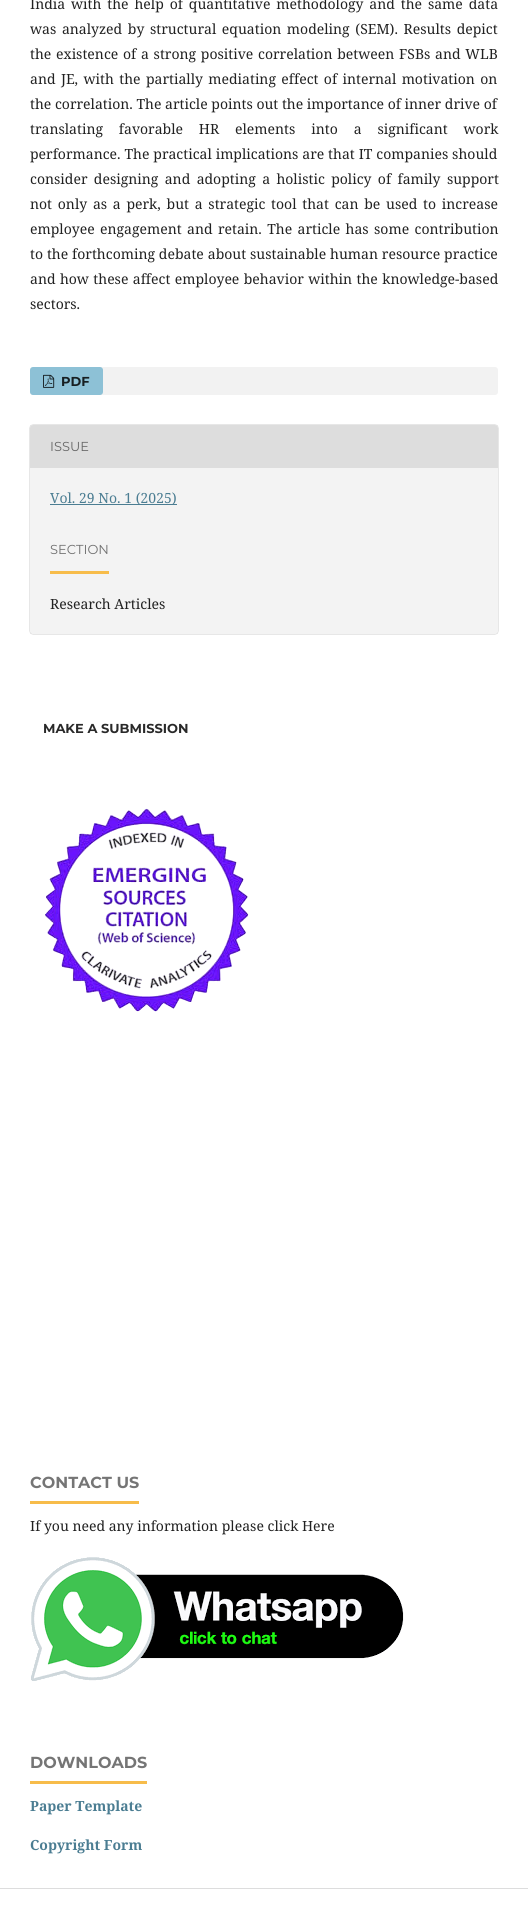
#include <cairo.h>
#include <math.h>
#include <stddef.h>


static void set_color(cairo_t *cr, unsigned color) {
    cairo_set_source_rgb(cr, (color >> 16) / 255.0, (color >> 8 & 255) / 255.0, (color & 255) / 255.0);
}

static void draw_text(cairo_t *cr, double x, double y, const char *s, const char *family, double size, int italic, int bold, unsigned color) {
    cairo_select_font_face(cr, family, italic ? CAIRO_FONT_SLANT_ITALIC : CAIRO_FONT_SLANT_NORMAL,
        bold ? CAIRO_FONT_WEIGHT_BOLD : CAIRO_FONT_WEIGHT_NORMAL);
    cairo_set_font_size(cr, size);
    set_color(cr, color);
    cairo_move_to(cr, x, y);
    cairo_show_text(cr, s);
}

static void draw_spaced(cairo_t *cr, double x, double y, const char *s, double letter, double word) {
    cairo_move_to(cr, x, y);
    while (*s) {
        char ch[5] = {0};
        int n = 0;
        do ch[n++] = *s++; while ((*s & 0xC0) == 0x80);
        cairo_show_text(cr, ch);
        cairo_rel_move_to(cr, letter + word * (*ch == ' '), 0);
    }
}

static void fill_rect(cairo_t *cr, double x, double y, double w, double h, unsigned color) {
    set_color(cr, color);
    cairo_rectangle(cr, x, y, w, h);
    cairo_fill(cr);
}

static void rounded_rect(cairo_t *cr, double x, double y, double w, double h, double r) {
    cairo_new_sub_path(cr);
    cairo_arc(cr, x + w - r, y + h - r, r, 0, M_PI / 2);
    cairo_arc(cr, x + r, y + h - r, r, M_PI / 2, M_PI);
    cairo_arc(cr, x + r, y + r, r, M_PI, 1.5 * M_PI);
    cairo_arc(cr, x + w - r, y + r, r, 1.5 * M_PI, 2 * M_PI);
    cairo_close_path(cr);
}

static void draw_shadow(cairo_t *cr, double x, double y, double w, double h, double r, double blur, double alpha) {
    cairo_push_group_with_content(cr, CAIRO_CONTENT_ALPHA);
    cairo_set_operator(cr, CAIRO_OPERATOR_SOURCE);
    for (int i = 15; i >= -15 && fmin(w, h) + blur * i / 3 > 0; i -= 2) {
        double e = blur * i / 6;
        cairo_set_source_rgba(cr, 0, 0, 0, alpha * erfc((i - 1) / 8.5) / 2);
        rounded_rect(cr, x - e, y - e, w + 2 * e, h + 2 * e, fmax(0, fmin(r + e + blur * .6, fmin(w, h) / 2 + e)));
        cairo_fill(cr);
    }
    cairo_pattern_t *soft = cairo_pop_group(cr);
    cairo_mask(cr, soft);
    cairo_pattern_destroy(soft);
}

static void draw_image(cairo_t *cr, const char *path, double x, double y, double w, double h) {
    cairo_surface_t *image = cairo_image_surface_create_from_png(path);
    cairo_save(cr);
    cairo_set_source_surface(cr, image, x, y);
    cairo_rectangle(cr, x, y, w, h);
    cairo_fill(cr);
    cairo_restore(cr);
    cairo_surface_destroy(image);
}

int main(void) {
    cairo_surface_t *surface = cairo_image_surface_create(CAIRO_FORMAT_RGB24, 528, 1909);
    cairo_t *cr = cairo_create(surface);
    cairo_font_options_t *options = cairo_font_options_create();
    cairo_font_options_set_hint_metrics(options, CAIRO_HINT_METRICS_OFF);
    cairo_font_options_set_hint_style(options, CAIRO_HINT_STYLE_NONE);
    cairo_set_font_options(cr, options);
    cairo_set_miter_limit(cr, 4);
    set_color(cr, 0xFFFFFF);
    cairo_paint(cr);
    cairo_select_font_face(cr, "Noto Serif", CAIRO_FONT_SLANT_NORMAL, CAIRO_FONT_WEIGHT_NORMAL);
    cairo_set_font_size(cr, 14);
    set_color(cr, 0x212121);
    draw_spaced(cr, 30, 9, "India with the help of quantitative methodology and the same data", 0, 2.25);
    draw_spaced(cr, 30, 34, "was analyzed by structural equation modeling (SEM). Results depict", 0, 2);
    draw_spaced(cr, 30, 59, "the existence of a strong positive correlation between FSBs and WLB", 0, 1.1);
    draw_spaced(cr, 30, 84, "and JE, with the partially mediating effect of internal motivation on", 0, 1.75);
    draw_text(cr, 30, 109, "the correlation. The article points out the importance of inner drive of", "Noto Serif", 14, 0, 0, 0x212121);
    draw_spaced(cr, 30, 134, "translating favorable HR elements into a significant work", 0, 12.25);
    draw_spaced(cr, 30, 159, "performance. The practical implications are that IT companies should", 0, 0.25);
    draw_spaced(cr, 30, 184, "consider designing and adopting a holistic policy of family support", 0, 2.75);
    draw_spaced(cr, 30, 209, "not only as a perk, but a strategic tool that can be used to increase", 0, 2.1);
    draw_spaced(cr, 30, 234, "employee engagement and retain. The article has some contribution", 0, 1.75);
    draw_spaced(cr, 30, 259, "to the forthcoming debate about sustainable human resource practice", 0, 0.25);
    draw_spaced(cr, 30, 284, "and how these affect employee behavior within the knowledge-based", 0, 0.75);
    draw_text(cr, 30, 309, "sectors.", "Noto Serif", 14, 0, 0, 0x212121);
    set_color(cr, 0xF2F2F2);
    rounded_rect(cr, 30, 367, 468, 28, 3);
    cairo_fill(cr);
    cairo_set_source_rgba(cr, 0.361, 0.659, 0.784, 0.67);
    rounded_rect(cr, 30, 367, 73, 28, 3);
    cairo_fill(cr);
    draw_image(cr, "assets/img1.png", 43, 374, 12, 14);
    draw_text(cr, 61, 386, "PDF", "Montserrat", 13, 0, 1, 0x171F22);
    cairo_save(cr);
    cairo_set_fill_rule(cr, CAIRO_FILL_RULE_EVEN_ODD);
    cairo_new_path(cr);
    cairo_move_to(cr, 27, 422);
    cairo_line_to(cr, 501, 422);
    cairo_line_to(cr, 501, 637);
    cairo_line_to(cr, 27, 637);
    cairo_close_path(cr);
    cairo_move_to(cr, 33, 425);
    cairo_line_to(cr, 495, 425);
    cairo_curve_to(cr, 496.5, 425, 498, 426.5, 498, 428);
    cairo_line_to(cr, 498, 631);
    cairo_curve_to(cr, 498, 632.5, 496.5, 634, 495, 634);
    cairo_line_to(cr, 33, 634);
    cairo_curve_to(cr, 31.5, 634, 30, 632.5, 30, 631);
    cairo_line_to(cr, 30, 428);
    cairo_curve_to(cr, 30, 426.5, 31.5, 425, 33, 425);
    cairo_close_path(cr);
    cairo_clip(cr);
    set_color(cr, 0x000000);
    draw_shadow(cr, 30, 425, 468, 209, 3, 0.5, 0.4);
    cairo_restore(cr);
    cairo_set_source_rgba(cr, 0, 0, 0, 0.05);
    cairo_rectangle(cr, 30, 425, 468, 209);
    cairo_fill(cr);
    set_color(cr, 0xDDDDDD);
    cairo_new_path(cr);
    cairo_move_to(cr, 33, 425);
    cairo_line_to(cr, 495, 425);
    cairo_curve_to(cr, 496.5, 425, 498, 426.5, 498, 428);
    cairo_line_to(cr, 498, 468);
    cairo_line_to(cr, 30, 468);
    cairo_line_to(cr, 30, 428);
    cairo_curve_to(cr, 30, 426.5, 31.5, 425, 33, 425);
    cairo_close_path(cr);
    cairo_fill(cr);
    draw_text(cr, 50, 451, "ISSUE", "Montserrat", 13, 0, 0, 0x666666);
    fill_rect(cr, 50, 504, 127, 1, 0x4B7D92);
    draw_text(cr, 50, 503, "Vol. 29 No. 1 (2025)", "Noto Serif", 14, 0, 0, 0x4B7D92);
    fill_rect(cr, 50, 571, 59, 3, 0xF7BC4A);
    draw_text(cr, 50, 554, "SECTION", "Montserrat", 13, 0, 0, 0x6F6F6F);
    draw_text(cr, 50, 609, "Research Articles", "Noto Serif", 14, 0, 0, 0x212121);
    draw_text(cr, 43, 733, "MAKE A SUBMISSION", "Montserrat", 13, 0, 1, 0x292929);
    draw_image(cr, "assets/img2.png", 45, 808, 204, 204);
    fill_rect(cr, 30, 1501, 109, 3, 0xF7BC4A);
    draw_text(cr, 30, 1488, "CONTACT US", "Montserrat", 16, 0, 1, 0x757575);
    draw_text(cr, 30, 1531, "If you need any information please click Here", "Noto Serif", 14, 0, 0, 0x212121);
    draw_image(cr, "assets/img3.png", 31, 1557, 373, 124);
    fill_rect(cr, 30, 1781, 117, 3, 0xF7BC4A);
    draw_text(cr, 30, 1768, "DOWNLOADS", "Montserrat", 16, 0, 1, 0x757575);
    draw_text(cr, 30, 1811, "Paper Template", "Noto Serif", 14, 0, 1, 0x4B7D92);
    draw_text(cr, 30, 1850, "Copyright Form", "Noto Serif", 14, 0, 1, 0x4B7D92);
    fill_rect(cr, 0, 1888, 528, 1, 0xDDDDDD);
    cairo_surface_write_to_png(surface, "output.png");
    cairo_font_options_destroy(options);
    cairo_destroy(cr);
    cairo_surface_destroy(surface);
    return 0;
}
